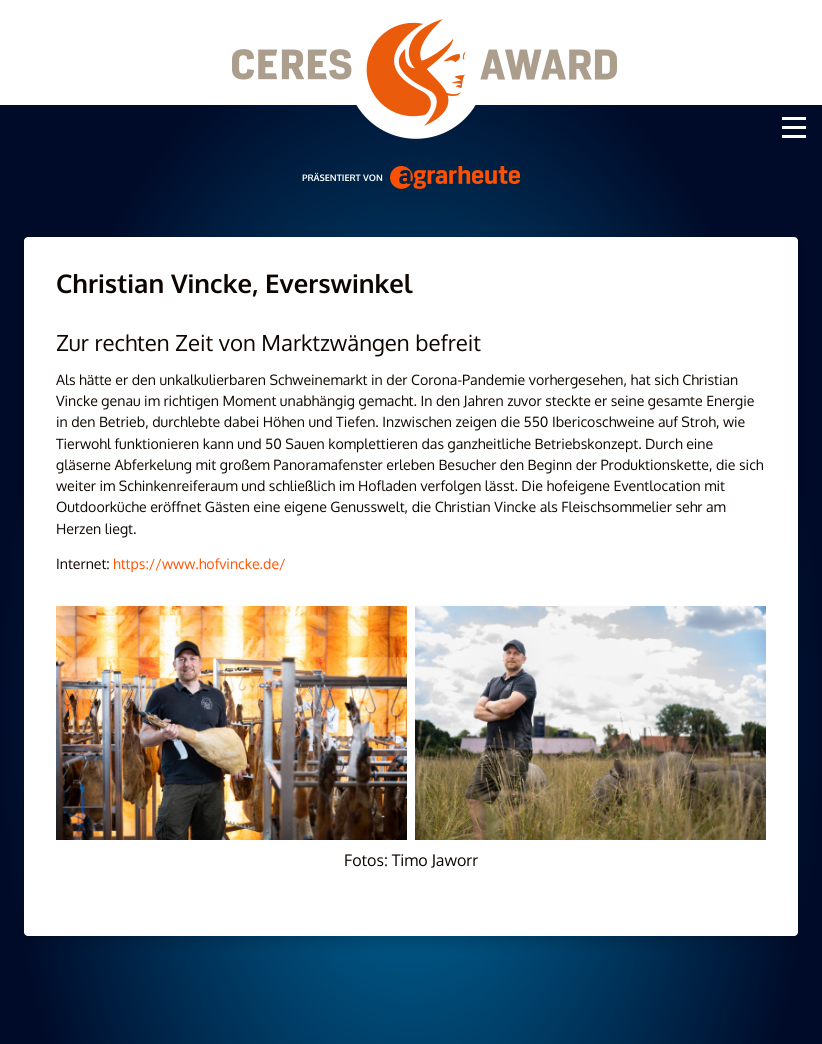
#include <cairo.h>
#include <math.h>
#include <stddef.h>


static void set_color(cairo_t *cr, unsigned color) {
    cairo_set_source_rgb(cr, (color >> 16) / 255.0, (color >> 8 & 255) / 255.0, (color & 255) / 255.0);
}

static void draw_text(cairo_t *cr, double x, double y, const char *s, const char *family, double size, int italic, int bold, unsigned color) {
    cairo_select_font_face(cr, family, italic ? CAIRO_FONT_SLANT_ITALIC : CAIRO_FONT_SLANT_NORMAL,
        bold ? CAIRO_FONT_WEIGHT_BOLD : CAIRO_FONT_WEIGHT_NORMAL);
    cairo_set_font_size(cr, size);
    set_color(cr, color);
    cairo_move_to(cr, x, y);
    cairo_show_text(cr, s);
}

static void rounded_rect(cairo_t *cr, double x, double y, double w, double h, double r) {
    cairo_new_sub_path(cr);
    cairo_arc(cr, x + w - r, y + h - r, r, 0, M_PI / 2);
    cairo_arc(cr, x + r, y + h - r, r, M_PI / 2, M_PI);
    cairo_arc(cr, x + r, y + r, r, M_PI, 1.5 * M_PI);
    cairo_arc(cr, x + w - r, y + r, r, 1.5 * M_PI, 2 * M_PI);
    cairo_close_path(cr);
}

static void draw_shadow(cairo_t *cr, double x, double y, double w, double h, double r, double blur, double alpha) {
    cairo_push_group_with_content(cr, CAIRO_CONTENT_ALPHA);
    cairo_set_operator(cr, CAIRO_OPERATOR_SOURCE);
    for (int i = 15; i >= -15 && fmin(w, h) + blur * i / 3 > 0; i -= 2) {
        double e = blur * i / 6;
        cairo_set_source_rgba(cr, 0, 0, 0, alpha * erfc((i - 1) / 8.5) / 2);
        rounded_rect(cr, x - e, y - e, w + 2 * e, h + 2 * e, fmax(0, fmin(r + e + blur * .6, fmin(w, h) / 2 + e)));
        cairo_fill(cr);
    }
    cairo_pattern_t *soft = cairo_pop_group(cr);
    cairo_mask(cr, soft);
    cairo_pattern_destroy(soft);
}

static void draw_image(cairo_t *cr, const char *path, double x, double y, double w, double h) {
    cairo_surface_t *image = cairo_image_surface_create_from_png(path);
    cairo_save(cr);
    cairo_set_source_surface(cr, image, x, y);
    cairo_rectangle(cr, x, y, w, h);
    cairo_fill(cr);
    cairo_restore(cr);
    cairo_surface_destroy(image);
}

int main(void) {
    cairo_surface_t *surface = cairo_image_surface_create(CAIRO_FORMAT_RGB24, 822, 1044);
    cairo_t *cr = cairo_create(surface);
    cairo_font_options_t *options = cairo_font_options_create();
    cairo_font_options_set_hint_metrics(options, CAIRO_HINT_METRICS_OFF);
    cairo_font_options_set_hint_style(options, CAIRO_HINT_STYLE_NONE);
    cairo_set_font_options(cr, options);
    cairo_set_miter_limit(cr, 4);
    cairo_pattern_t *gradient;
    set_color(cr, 0xFFFFFF);
    cairo_paint(cr);
    gradient = cairo_pattern_create_radial(0, 0, 0, 0, 0, 1);
    cairo_pattern_set_matrix(gradient, &(cairo_matrix_t){1.0 / 411, 0, 0, 1.0 / 716, -1.0 * 411 / 411, -1.0 * 716 / 716});
    cairo_pattern_add_color_stop_rgba(gradient, 0, 0, 0.451, 0.659, 1);
    cairo_pattern_add_color_stop_rgba(gradient, 1, 0, 0.043, 0.161, 1);
    cairo_set_source(cr, gradient);
    cairo_pattern_destroy(gradient);
    cairo_rectangle(cr, 0, 105, 822, 939);
    cairo_fill(cr);
    draw_image(cr, "assets/img1.png", 232, 19, 385, 120);
    draw_image(cr, "assets/img2.png", 782, 117, 24, 21);
    draw_text(cr, 302, 181, "PRÄSENTIERT VON", "Oxygen", 9, 0, 1, 0xFFFFFF);
    draw_image(cr, "assets/img3.png", 390, 166, 130, 23);
    set_color(cr, 0x000000);
    draw_shadow(cr, 24, 242, 774, 699, 4, 7.5, 0.2);
    set_color(cr, 0xFFFFFF);
    rounded_rect(cr, 24, 237, 774, 699, 4);
    cairo_fill(cr);
    draw_text(cr, 56, 293, "Christian Vincke, Everswinkel", "Oxygen", 25.7, 0, 1, 0x0E0500);
    draw_text(cr, 56, 351, "Zur rechten Zeit von Marktzwängen befreit", "Oxygen", 22.2, 0, 0, 0x0E0500);
    draw_text(cr, 56, 385, "Als hätte er den unkalkulierbaren Schweinemarkt in der Corona-Pandemie vorhergesehen, hat sich Christian", "Oxygen", 14.15, 0, 0, 0x0E0500);
    draw_text(cr, 56, 406, "Vincke genau im richtigen Moment unabhängig gemacht. In den Jahren zuvor steckte er seine gesamte Energie", "Oxygen", 14.15, 0, 0, 0x0E0500);
    draw_text(cr, 56, 427, "in den Betrieb, durchlebte dabei Höhen und Tiefen. Inzwischen zeigen die 550 Ibericoschweine auf Stroh, wie", "Oxygen", 14.15, 0, 0, 0x0E0500);
    draw_text(cr, 56, 449, "Tierwohl funktionieren kann und 50 Sauen komplettieren das ganzheitliche Betriebskonzept. Durch eine", "Oxygen", 14.15, 0, 0, 0x0E0500);
    draw_text(cr, 56, 470, "gläserne Abferkelung mit großem Panoramafenster erleben Besucher den Beginn der Produktionskette, die sich", "Oxygen", 14.15, 0, 0, 0x0E0500);
    draw_text(cr, 56, 491, "weiter im Schinkenreiferaum und schließlich im Hofladen verfolgen lässt. Die hofeigene Eventlocation mit", "Oxygen", 14.15, 0, 0, 0x0E0500);
    draw_text(cr, 56, 512, "Outdoorküche eröffnet Gästen eine eigene Genusswelt, die Christian Vincke als Fleischsommelier sehr am", "Oxygen", 14.15, 0, 0, 0x0E0500);
    draw_text(cr, 56, 534, "Herzen liegt.", "Oxygen", 14.15, 0, 0, 0x0E0500);
    draw_text(cr, 56, 569, "Internet:", "Oxygen", 14.15, 0, 0, 0x0E0500);
    draw_text(cr, 113, 569, "https://www.hofvincke.de/", "Oxygen", 14.15, 0, 0, 0xFF5100);
    draw_image(cr, "assets/img4.png", 56, 606, 351, 234);
    draw_image(cr, "assets/img5.png", 415, 606, 351, 234);
    draw_text(cr, 344, 866, "Fotos: Timo Jaworr", "Oxygen", 16, 0, 0, 0x0E0500);
    cairo_surface_write_to_png(surface, "output.png");
    cairo_font_options_destroy(options);
    cairo_destroy(cr);
    cairo_surface_destroy(surface);
    return 0;
}
